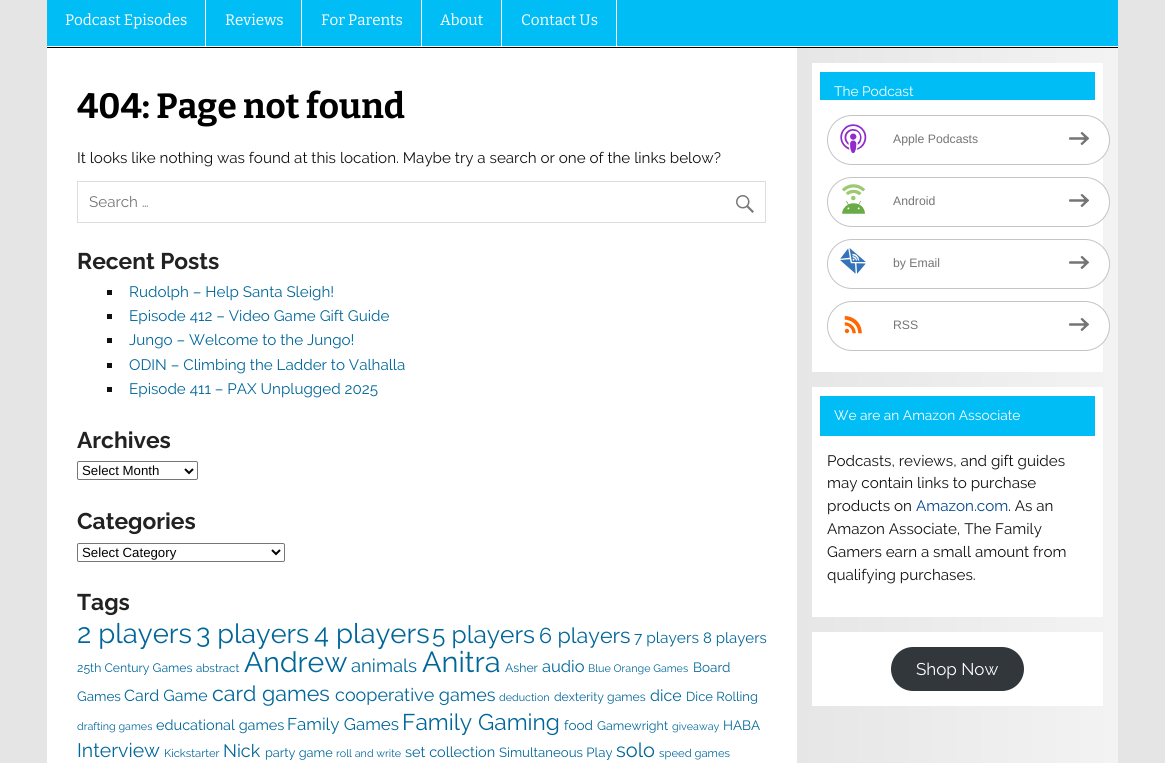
#include <cairo.h>
#include <math.h>
#include <stddef.h>


static void set_color(cairo_t *cr, unsigned color) {
    cairo_set_source_rgb(cr, (color >> 16) / 255.0, (color >> 8 & 255) / 255.0, (color & 255) / 255.0);
}

static void draw_text(cairo_t *cr, double x, double y, const char *s, const char *family, double size, int italic, int bold, unsigned color) {
    cairo_select_font_face(cr, family, italic ? CAIRO_FONT_SLANT_ITALIC : CAIRO_FONT_SLANT_NORMAL,
        bold ? CAIRO_FONT_WEIGHT_BOLD : CAIRO_FONT_WEIGHT_NORMAL);
    cairo_set_font_size(cr, size);
    set_color(cr, color);
    cairo_move_to(cr, x, y);
    cairo_show_text(cr, s);
}

static void fill_rect(cairo_t *cr, double x, double y, double w, double h, unsigned color) {
    set_color(cr, color);
    cairo_rectangle(cr, x, y, w, h);
    cairo_fill(cr);
}

static void rounded_rect(cairo_t *cr, double x, double y, double w, double h, double r) {
    cairo_new_sub_path(cr);
    cairo_arc(cr, x + w - r, y + h - r, r, 0, M_PI / 2);
    cairo_arc(cr, x + r, y + h - r, r, M_PI / 2, M_PI);
    cairo_arc(cr, x + r, y + r, r, M_PI, 1.5 * M_PI);
    cairo_arc(cr, x + w - r, y + r, r, 1.5 * M_PI, 2 * M_PI);
    cairo_close_path(cr);
}

static void draw_image(cairo_t *cr, const char *path, double x, double y, double w, double h) {
    cairo_surface_t *image = cairo_image_surface_create_from_png(path);
    cairo_save(cr);
    cairo_set_source_surface(cr, image, x, y);
    cairo_rectangle(cr, x, y, w, h);
    cairo_fill(cr);
    cairo_restore(cr);
    cairo_surface_destroy(image);
}

int main(void) {
    cairo_surface_t *surface = cairo_image_surface_create(CAIRO_FORMAT_RGB24, 1165, 763);
    cairo_t *cr = cairo_create(surface);
    cairo_font_options_t *options = cairo_font_options_create();
    cairo_font_options_set_hint_metrics(options, CAIRO_HINT_METRICS_OFF);
    cairo_font_options_set_hint_style(options, CAIRO_HINT_STYLE_NONE);
    cairo_set_font_options(cr, options);
    cairo_set_miter_limit(cr, 4);
    cairo_pattern_t *gradient;
    set_color(cr, 0xE5E5E5);
    cairo_paint(cr);
    fill_rect(cr, 47, 46, 1071, 717, 0xFFFFFF);
    fill_rect(cr, 47, 47, 1071, 1, 0x000000);
    fill_rect(cr, 47, 0, 1071, 46, 0x00BEF5);
    fill_rect(cr, 205, 0, 1, 46, 0xFFFFFF);
    draw_text(cr, 65, 25, "Podcast Episodes", "Bitter", 15.2, 0, 0, 0xFFFFFF);
    fill_rect(cr, 301, 0, 1, 46, 0xFFFFFF);
    draw_text(cr, 225, 25, "Reviews", "Bitter", 15.2, 0, 0, 0xFFFFFF);
    fill_rect(cr, 421, 0, 1, 46, 0xFFFFFF);
    draw_text(cr, 321, 25, "For Parents", "Bitter", 15.2, 0, 0, 0xFFFFFF);
    fill_rect(cr, 501, 0, 1, 46, 0xFFFFFF);
    draw_text(cr, 440, 25, "About", "Bitter", 15.2, 0, 0, 0xFFFFFF);
    fill_rect(cr, 616, 0, 1, 46, 0xFFFFFF);
    draw_text(cr, 521, 25, "Contact Us", "Bitter", 15.2, 0, 0, 0xFFFFFF);
    draw_text(cr, 77, 118, "404: Page not found", "Bitter", 35, 0, 1, 0x000000);
    draw_text(cr, 77, 163, "It looks like nothing was found at this location. Maybe try a search or one of the links below?", "Raleway", 15.2, 0, 0, 0x111111);
    cairo_rectangle(cr, 77.5, 181.5, 688, 41);
    set_color(cr, 0xDDDDDD);
    cairo_set_line_width(cr, 1);
    cairo_stroke(cr);
    draw_text(cr, 89, 207, "Search …", "Raleway", 15.2, 0, 0, 0x757575);
    draw_image(cr, "assets/img1.png", 736, 195, 18, 18);
    draw_text(cr, 77, 269, "Recent Posts", "Raleway", 22.75, 0, 1, 0x222222);
    fill_rect(cr, 107, 290, 5, 5, 0x111111);
    draw_text(cr, 129, 297, "Rudolph – Help Santa Sleigh!", "Raleway", 15.2, 0, 0, 0x006699);
    fill_rect(cr, 107, 314, 5, 5, 0x111111);
    draw_text(cr, 129, 321, "Episode 412 – Video Game Gift Guide", "Raleway", 15.2, 0, 0, 0x006699);
    fill_rect(cr, 107, 338, 5, 5, 0x111111);
    draw_text(cr, 129, 345, "Jungo – Welcome to the Jungo!", "Raleway", 15.2, 0, 0, 0x006699);
    fill_rect(cr, 107, 363, 5, 5, 0x111111);
    draw_text(cr, 129, 370, "ODIN – Climbing the Ladder to Valhalla", "Raleway", 15.2, 0, 0, 0x006699);
    fill_rect(cr, 107, 387, 5, 5, 0x111111);
    draw_text(cr, 129, 394, "Episode 411 – PAX Unplugged 2025", "Raleway", 15.2, 0, 0, 0x006699);
    draw_text(cr, 77, 448, "Archives", "Raleway", 22.75, 0, 1, 0x222222);
    rounded_rect(cr, 77.5, 461.5, 120, 18, 1.5);
    set_color(cr, 0x767676);
    cairo_stroke(cr);
    cairo_new_path(cr);
    cairo_move_to(cr, 185, 469);
    cairo_line_to(cr, 189, 473);
    cairo_line_to(cr, 193, 469);
    set_color(cr, 0x000000);
    cairo_set_line_width(cr, 2);
    cairo_stroke(cr);
    draw_text(cr, 82, 475, "Select Month", "Liberation Sans", 13.25, 0, 0, 0x000000);
    draw_text(cr, 77, 529, "Categories", "Raleway", 22.75, 0, 1, 0x222222);
    rounded_rect(cr, 77.5, 543.5, 207, 18, 1.5);
    set_color(cr, 0x767676);
    cairo_set_line_width(cr, 1);
    cairo_stroke(cr);
    cairo_new_path(cr);
    cairo_move_to(cr, 272, 550);
    cairo_line_to(cr, 276, 554);
    cairo_line_to(cr, 280, 550);
    set_color(cr, 0x000000);
    cairo_set_line_width(cr, 2);
    cairo_stroke(cr);
    draw_text(cr, 82, 557, "Select Category", "Liberation Sans", 13.25, 0, 0, 0x000000);
    draw_text(cr, 77, 610, "Tags", "Raleway", 22.75, 0, 1, 0x222222);
    draw_text(cr, 77, 643, "2 players", "Raleway", 27.5, 0, 0, 0x006699);
    draw_text(cr, 196, 643, "3 players", "Raleway", 27, 0, 0, 0x006699);
    draw_text(cr, 314, 643, "4 players", "Raleway", 27.5, 0, 0, 0x006699);
    draw_text(cr, 432, 643, "5 players", "Raleway", 24.5, 0, 0, 0x006699);
    draw_text(cr, 539, 643, "6 players", "Raleway", 21.5, 0, 0, 0x006699);
    draw_text(cr, 634, 643, "7 players", "Raleway", 15.5, 0, 0, 0x006699);
    draw_text(cr, 703, 643, "8 players", "Raleway", 15, 0, 0, 0x006699);
    draw_text(cr, 77, 672, "25th Century Games", "Raleway", 12.25, 0, 0, 0x006699);
    draw_text(cr, 196, 672, "abstract", "Raleway", 11.5, 0, 0, 0x006699);
    draw_text(cr, 244, 672, "Andrew", "Raleway", 28.5, 0, 0, 0x006699);
    draw_text(cr, 351, 672, "animals", "Raleway", 18.5, 0, 0, 0x006699);
    draw_text(cr, 422, 672, "Anitra", "Raleway", 29, 0, 0, 0x006699);
    draw_text(cr, 505, 672, "Asher", "Raleway", 12.25, 0, 0, 0x006699);
    draw_text(cr, 542, 672, "audio", "Raleway", 16.5, 0, 0, 0x006699);
    draw_text(cr, 588, 672, "Blue Orange Games", "Raleway", 10.75, 0, 0, 0x006699);
    draw_text(cr, 693, 672, "Board", "Raleway", 13.5, 0, 0, 0x006699);
    draw_text(cr, 77, 701, "Games", "Raleway", 13.5, 0, 0, 0x006699);
    draw_text(cr, 124, 701, "Card Game", "Raleway", 16, 0, 0, 0x006699);
    draw_text(cr, 212, 701, "card games", "Raleway", 21.5, 0, 0, 0x006699);
    draw_text(cr, 335, 701, "cooperative games", "Raleway", 18, 0, 0, 0x006699);
    draw_text(cr, 499, 701, "deduction", "Raleway", 10.75, 0, 0, 0x006699);
    draw_text(cr, 554, 701, "dexterity games", "Raleway", 12.25, 0, 0, 0x006699);
    draw_text(cr, 650, 701, "dice", "Raleway", 16, 0, 0, 0x006699);
    draw_text(cr, 686, 701, "Dice Rolling", "Raleway", 13, 0, 0, 0x006699);
    draw_text(cr, 77, 730, "drafting games", "Raleway", 10.75, 0, 0, 0x006699);
    draw_text(cr, 156, 730, "educational games", "Raleway", 14.5, 0, 0, 0x006699);
    draw_text(cr, 287, 730, "Family Games", "Raleway", 17, 0, 0, 0x006699);
    draw_text(cr, 402, 730, "Family Gaming", "Raleway", 22.75, 0, 0, 0x006699);
    draw_text(cr, 564, 730, "food", "Raleway", 13.5, 0, 0, 0x006699);
    draw_text(cr, 597, 730, "Gamewright", "Raleway", 12.5, 0, 0, 0x006699);
    draw_text(cr, 672, 730, "giveaway", "Raleway", 10.75, 0, 0, 0x006699);
    draw_text(cr, 723, 730, "HABA", "Raleway", 13.5, 0, 0, 0x006699);
    draw_text(cr, 77, 757, "Interview", "Raleway", 19.5, 0, 0, 0x006699);
    draw_text(cr, 164, 757, "Kickstarter", "Raleway", 11.25, 0, 0, 0x006699);
    draw_text(cr, 223, 757, "Nick", "Raleway", 18, 0, 0, 0x006699);
    draw_text(cr, 265, 757, "party game", "Raleway", 12.75, 0, 0, 0x006699);
    draw_text(cr, 336, 757, "roll and write", "Raleway", 10.75, 0, 0, 0x006699);
    draw_text(cr, 405, 757, "set collection", "Raleway", 14.5, 0, 0, 0x006699);
    draw_text(cr, 499, 757, "Simultaneous Play", "Raleway", 13.25, 0, 0, 0x006699);
    draw_text(cr, 616, 757, "solo", "Raleway", 20, 0, 0, 0x006699);
    draw_text(cr, 659, 757, "speed games", "Raleway", 11.25, 0, 0, 0x006699);
    gradient = cairo_pattern_create_linear(797, 573, 1118, 573);
    cairo_pattern_add_color_stop_rgba(gradient, 0, 0.902, 0.902, 0.902, 1);
    cairo_pattern_add_color_stop_rgba(gradient, 1, 0.953, 0.953, 0.953, 1);
    cairo_set_source(cr, gradient);
    cairo_pattern_destroy(gradient);
    cairo_rectangle(cr, 797, 48, 321, 715);
    cairo_fill(cr);
    fill_rect(cr, 812, 63, 291, 309, 0xFFFFFF);
    fill_rect(cr, 820, 72, 275, 28, 0x00BEF5);
    draw_text(cr, 834, 96, "The Podcast", "Raleway", 13.75, 0, 0, 0xFFFFFF);
    rounded_rect(cr, 827.5, 115.5, 282, 49, 24.5);
    cairo_fill_preserve(cr);
    set_color(cr, 0xC4C4C4);
    cairo_set_line_width(cr, 1);
    cairo_stroke(cr);
    draw_image(cr, "assets/img2.png", 840, 124, 27, 29);
    draw_text(cr, 893, 143, "Apple Podcasts", "Liberation Sans", 12.25, 0, 0, 0x757575);
    draw_image(cr, "assets/img3.png", 1069, 132, 20, 13);
    set_color(cr, 0xFFFFFF);
    rounded_rect(cr, 827.5, 177.5, 282, 49, 24.5);
    cairo_fill_preserve(cr);
    set_color(cr, 0xC4C4C4);
    cairo_stroke(cr);
    draw_image(cr, "assets/img4.png", 842, 184, 24, 30);
    draw_text(cr, 893, 205, "Android", "Liberation Sans", 12.25, 0, 0, 0x757575);
    draw_image(cr, "assets/img3.png", 1069, 194, 20, 13);
    set_color(cr, 0xFFFFFF);
    rounded_rect(cr, 827.5, 239.5, 282, 49, 24.5);
    cairo_fill_preserve(cr);
    set_color(cr, 0xC4C4C4);
    cairo_stroke(cr);
    draw_image(cr, "assets/img5.png", 840, 248, 26, 26);
    draw_text(cr, 893, 267, "by Email", "Liberation Sans", 12.25, 0, 0, 0x757575);
    draw_image(cr, "assets/img3.png", 1069, 256, 20, 13);
    set_color(cr, 0xFFFFFF);
    rounded_rect(cr, 827.5, 301.5, 282, 49, 24.5);
    cairo_fill_preserve(cr);
    set_color(cr, 0xC4C4C4);
    cairo_stroke(cr);
    draw_image(cr, "assets/img6.png", 844, 316, 18, 18);
    draw_text(cr, 893, 329, "RSS", "Liberation Sans", 12.25, 0, 0, 0x757575);
    draw_image(cr, "assets/img3.png", 1069, 318, 20, 13);
    fill_rect(cr, 812, 387, 291, 230, 0xFFFFFF);
    fill_rect(cr, 820, 396, 275, 40, 0x00BEF5);
    draw_text(cr, 834, 420, "We are an Amazon Associate", "Raleway", 13.75, 0, 0, 0xFFFFFF);
    draw_text(cr, 827, 466, "Podcasts, reviews, and gift guides", "Raleway", 15.2, 0, 0, 0x111111);
    draw_text(cr, 827, 488, "may contain links to purchase", "Raleway", 15.2, 0, 0, 0x111111);
    draw_text(cr, 827, 511, "products on", "Raleway", 15.2, 0, 0, 0x111111);
    draw_text(cr, 916, 511, "Amazon.com", "Raleway", 15.2, 0, 0, 0x004488);
    draw_text(cr, 1008, 511, ". As an", "Raleway", 15.2, 0, 0, 0x111111);
    draw_text(cr, 827, 534, "Amazon Associate, The Family", "Raleway", 15.2, 0, 0, 0x111111);
    draw_text(cr, 827, 557, "Gamers earn a small amount from", "Raleway", 15.2, 0, 0, 0x111111);
    draw_text(cr, 827, 580, "qualifying purchases.", "Raleway", 15.2, 0, 0, 0x111111);
    fill_rect(cr, 812, 632, 291, 74, 0xFFFFFF);
    set_color(cr, 0x32373C);
    rounded_rect(cr, 891, 647, 133, 44, 22);
    cairo_fill(cr);
    draw_text(cr, 916, 675, "Shop Now", "Raleway", 17, 0, 0, 0xFFFFFF);
    cairo_surface_write_to_png(surface, "output.png");
    cairo_font_options_destroy(options);
    cairo_destroy(cr);
    cairo_surface_destroy(surface);
    return 0;
}
